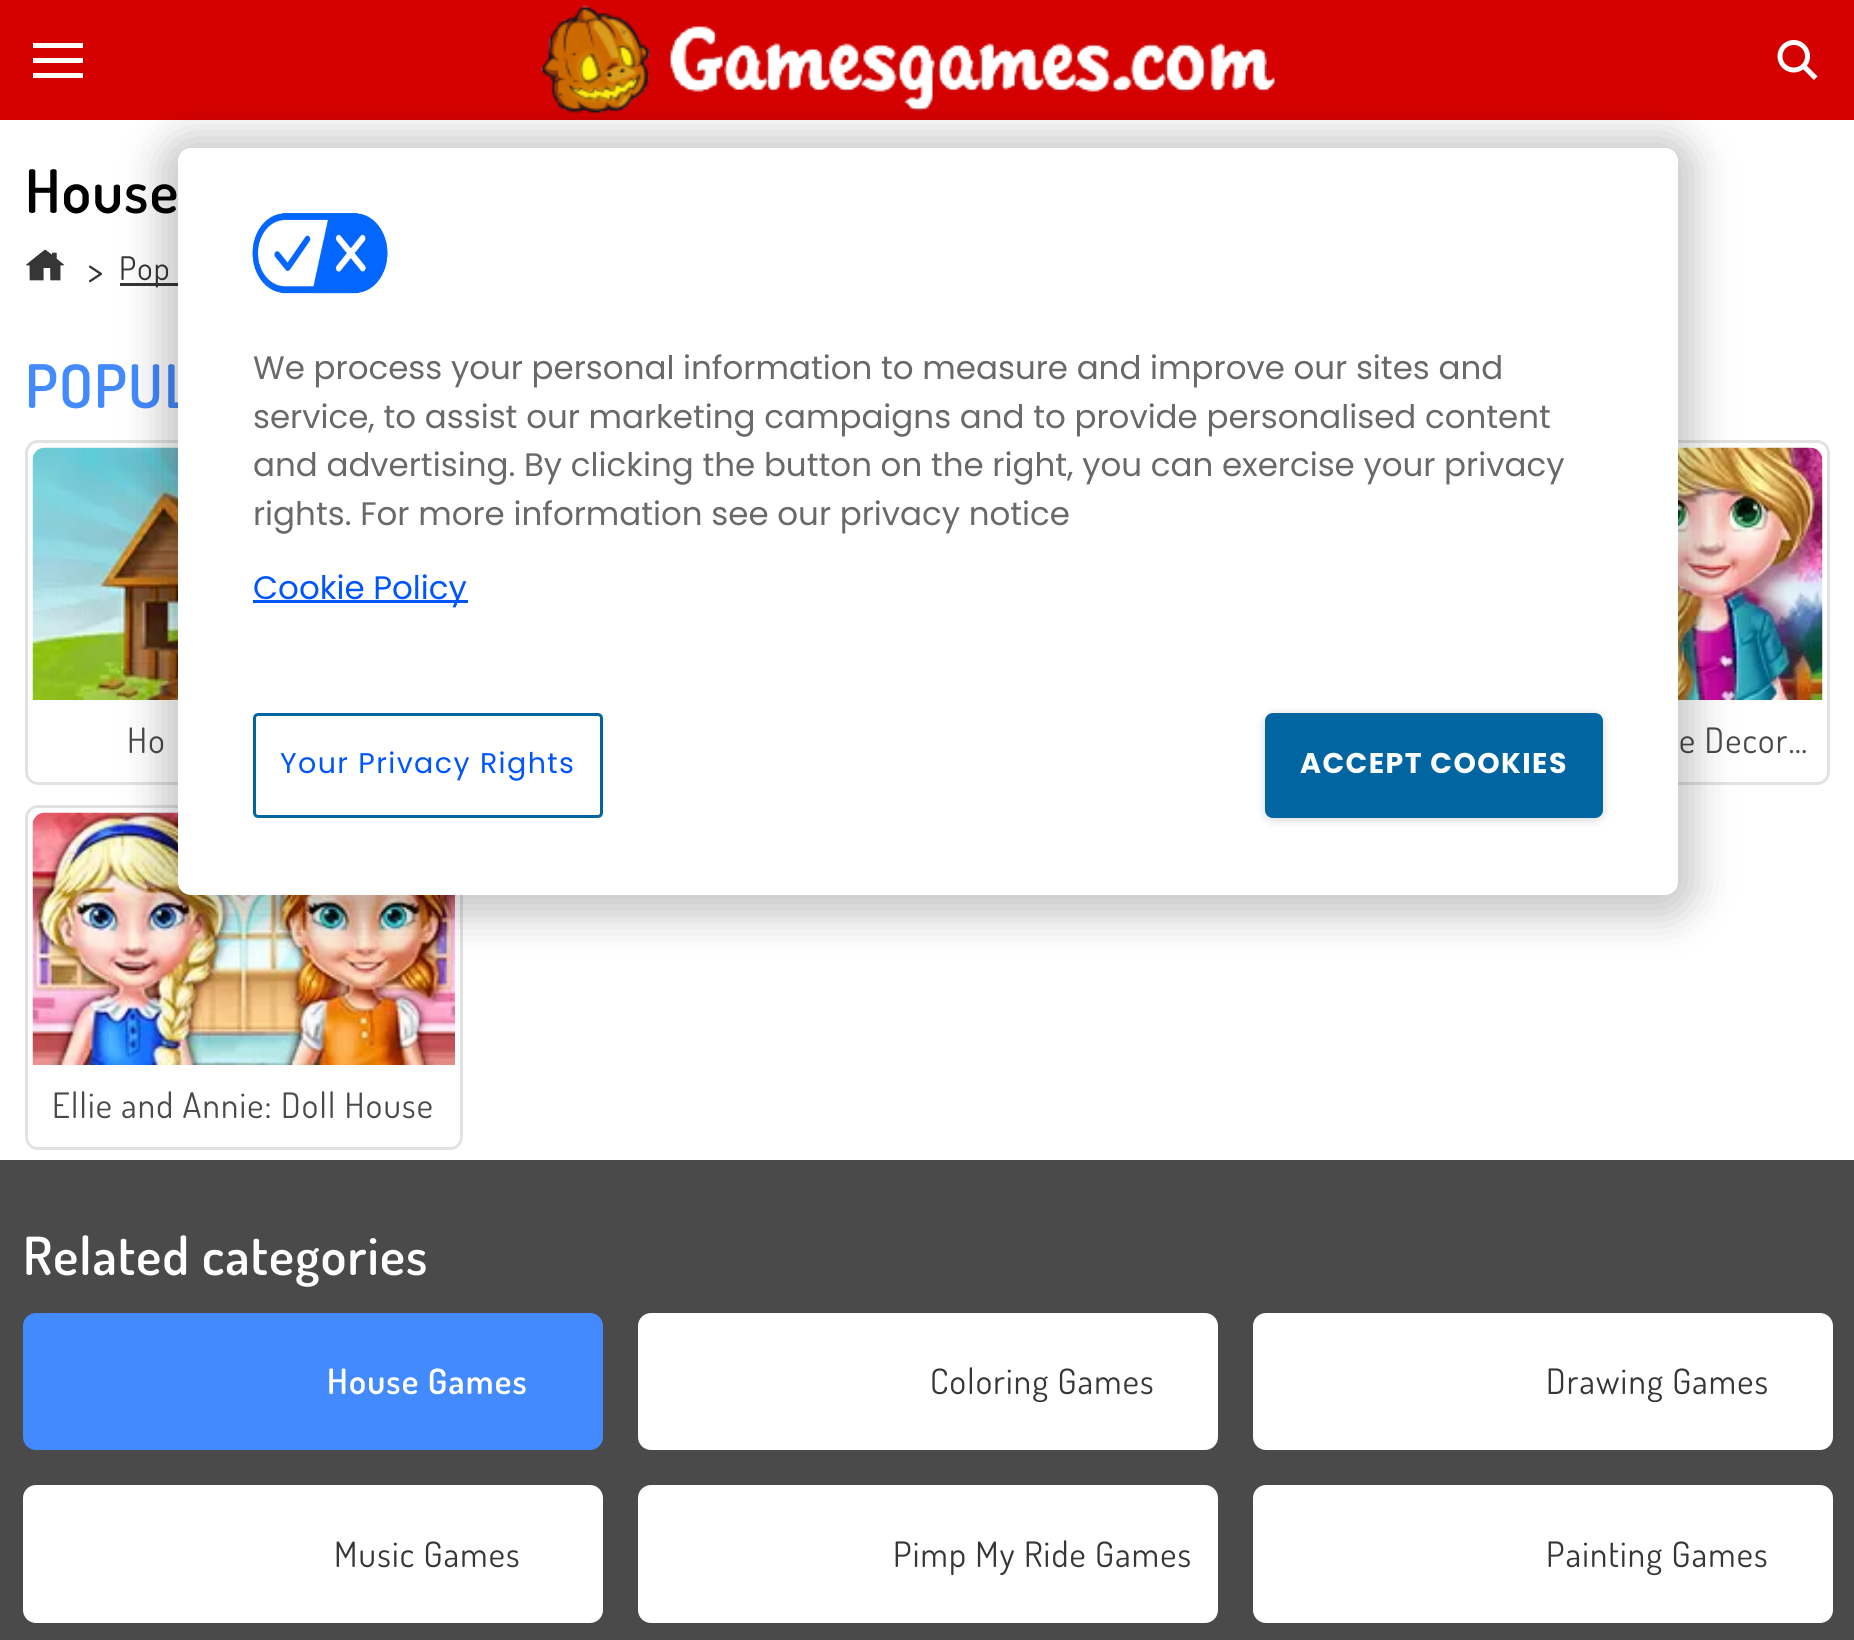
#include <cairo.h>
#include <math.h>
#include <stddef.h>


static void set_color(cairo_t *cr, unsigned color) {
    cairo_set_source_rgb(cr, (color >> 16) / 255.0, (color >> 8 & 255) / 255.0, (color & 255) / 255.0);
}

static void draw_text(cairo_t *cr, double x, double y, const char *s, const char *family, double size, int italic, int bold, unsigned color) {
    cairo_select_font_face(cr, family, italic ? CAIRO_FONT_SLANT_ITALIC : CAIRO_FONT_SLANT_NORMAL,
        bold ? CAIRO_FONT_WEIGHT_BOLD : CAIRO_FONT_WEIGHT_NORMAL);
    cairo_set_font_size(cr, size);
    set_color(cr, color);
    cairo_move_to(cr, x, y);
    cairo_show_text(cr, s);
}

static void draw_spaced(cairo_t *cr, double x, double y, const char *s, double letter, double word) {
    cairo_move_to(cr, x, y);
    while (*s) {
        char ch[5] = {0};
        int n = 0;
        do ch[n++] = *s++; while ((*s & 0xC0) == 0x80);
        cairo_show_text(cr, ch);
        cairo_rel_move_to(cr, letter + word * (*ch == ' '), 0);
    }
}

static void fill_rect(cairo_t *cr, double x, double y, double w, double h, unsigned color) {
    set_color(cr, color);
    cairo_rectangle(cr, x, y, w, h);
    cairo_fill(cr);
}

static void rounded_rect(cairo_t *cr, double x, double y, double w, double h, double r) {
    cairo_new_sub_path(cr);
    cairo_arc(cr, x + w - r, y + h - r, r, 0, M_PI / 2);
    cairo_arc(cr, x + r, y + h - r, r, M_PI / 2, M_PI);
    cairo_arc(cr, x + r, y + r, r, M_PI, 1.5 * M_PI);
    cairo_arc(cr, x + w - r, y + r, r, 1.5 * M_PI, 2 * M_PI);
    cairo_close_path(cr);
}

static void draw_shadow(cairo_t *cr, double x, double y, double w, double h, double r, double blur, double alpha) {
    cairo_push_group_with_content(cr, CAIRO_CONTENT_ALPHA);
    cairo_set_operator(cr, CAIRO_OPERATOR_SOURCE);
    for (int i = 15; i >= -15 && fmin(w, h) + blur * i / 3 > 0; i -= 2) {
        double e = blur * i / 6;
        cairo_set_source_rgba(cr, 0, 0, 0, alpha * erfc((i - 1) / 8.5) / 2);
        rounded_rect(cr, x - e, y - e, w + 2 * e, h + 2 * e, fmax(0, fmin(r + e + blur * .6, fmin(w, h) / 2 + e)));
        cairo_fill(cr);
    }
    cairo_pattern_t *soft = cairo_pop_group(cr);
    cairo_mask(cr, soft);
    cairo_pattern_destroy(soft);
}

static void draw_image(cairo_t *cr, const char *path, double x, double y, double w, double h) {
    cairo_surface_t *image = cairo_image_surface_create_from_png(path);
    cairo_save(cr);
    cairo_set_source_surface(cr, image, x, y);
    cairo_rectangle(cr, x, y, w, h);
    cairo_fill(cr);
    cairo_restore(cr);
    cairo_surface_destroy(image);
}

int main(void) {
    cairo_surface_t *surface = cairo_image_surface_create(CAIRO_FORMAT_RGB24, 1854, 1640);
    cairo_t *cr = cairo_create(surface);
    cairo_font_options_t *options = cairo_font_options_create();
    cairo_font_options_set_hint_metrics(options, CAIRO_HINT_METRICS_OFF);
    cairo_font_options_set_hint_style(options, CAIRO_HINT_STYLE_NONE);
    cairo_set_font_options(cr, options);
    cairo_set_miter_limit(cr, 4);
    set_color(cr, 0xD50000);
    cairo_paint(cr);
    fill_rect(cr, 33, 43, 50, 5, 0xFFFFFF);
    fill_rect(cr, 33, 58, 50, 5, 0xFFFFFF);
    fill_rect(cr, 33, 73, 50, 5, 0xFFFFFF);
    draw_image(cr, "assets/img1.png", 538, 5, 738, 108);
    draw_image(cr, "assets/img2.png", 1777, 40, 41, 40);
    fill_rect(cr, 0, 120, 1854, 1040, 0xFFFFFF);
    cairo_select_font_face(cr, "Dosis SemiBold", CAIRO_FONT_SLANT_NORMAL, CAIRO_FONT_WEIGHT_NORMAL);
    cairo_set_font_size(cr, 60);
    set_color(cr, 0x000000);
    draw_spaced(cr, 25, 213, "House", 1.2, 0);
    draw_image(cr, "assets/img3.png", 25, 249, 40, 32);
    cairo_select_font_face(cr, "Dosis", CAIRO_FONT_SLANT_NORMAL, CAIRO_FONT_WEIGHT_NORMAL);
    cairo_set_font_size(cr, 40);
    set_color(cr, 0x363636);
    draw_spaced(cr, 87, 285, ">", 1.2, 0);
    fill_rect(cr, 120, 283, 58, 3, 0x363636);
    cairo_set_font_size(cr, 32.5);
    draw_spaced(cr, 119, 280, "Pop", 1.2, 0);
    cairo_select_font_face(cr, "Dosis SemiBold", CAIRO_FONT_SLANT_NORMAL, CAIRO_FONT_WEIGHT_NORMAL);
    cairo_set_font_size(cr, 60);
    set_color(cr, 0x438AFE);
    draw_spaced(cr, 25, 408, "POPUL", 1.2, 0);
    rounded_rect(cr, 26.5, 441.5, 435, 342, 11.5);
    set_color(cr, 0xE2E2E2);
    cairo_set_line_width(cr, 3);
    cairo_stroke(cr);
    draw_image(cr, "assets/img4.png", 32, 447, 146, 253);
    cairo_select_font_face(cr, "Dosis", CAIRO_FONT_SLANT_NORMAL, CAIRO_FONT_WEIGHT_NORMAL);
    cairo_set_font_size(cr, 35);
    set_color(cr, 0x4A4A4A);
    draw_spaced(cr, 127, 753, "Ho", 1.2, 0);
    rounded_rect(cr, 1396.5, 441.5, 432, 342, 11.5);
    set_color(cr, 0xE2E2E2);
    cairo_stroke(cr);
    draw_image(cr, "assets/img5.png", 1678, 447, 145, 253);
    set_color(cr, 0x4A4A4A);
    draw_spaced(cr, 1679, 753, "e Decor…", 1.2, 0);
    rounded_rect(cr, 26.5, 806.5, 435, 342, 11.5);
    set_color(cr, 0xE2E2E2);
    cairo_stroke(cr);
    draw_image(cr, "assets/img6.png", 32, 812, 423, 253);
    set_color(cr, 0x4A4A4A);
    draw_spaced(cr, 52, 1118, "Ellie and Annie: Doll House", 1.2, 0);
    fill_rect(cr, 0, 1160, 1854, 480, 0x4A4A4A);
    cairo_select_font_face(cr, "Dosis SemiBold", CAIRO_FONT_SLANT_NORMAL, CAIRO_FONT_WEIGHT_NORMAL);
    cairo_set_font_size(cr, 52.5);
    set_color(cr, 0xFFFFFF);
    draw_spaced(cr, 23, 1275, "Related categories", 1.2, 0);
    set_color(cr, 0x438AFE);
    rounded_rect(cr, 23, 1313, 580, 137, 13);
    cairo_fill(cr);
    cairo_set_font_size(cr, 35);
    set_color(cr, 0xFFFFFF);
    draw_spaced(cr, 327, 1394, "House Games", 1.2, 0);
    rounded_rect(cr, 638, 1313, 580, 137, 13);
    cairo_fill(cr);
    cairo_select_font_face(cr, "Dosis", CAIRO_FONT_SLANT_NORMAL, CAIRO_FONT_WEIGHT_NORMAL);
    set_color(cr, 0x363636);
    draw_spaced(cr, 930, 1394, "Coloring Games", 1.2, 0);
    set_color(cr, 0xFFFFFF);
    rounded_rect(cr, 1253, 1313, 580, 137, 13);
    cairo_fill(cr);
    set_color(cr, 0x363636);
    draw_spaced(cr, 1546, 1394, "Drawing Games", 1.2, 0);
    set_color(cr, 0xFFFFFF);
    rounded_rect(cr, 23, 1485, 580, 138, 13);
    cairo_fill(cr);
    set_color(cr, 0x363636);
    draw_spaced(cr, 334, 1567, "Music Games", 1.2, 0);
    set_color(cr, 0xFFFFFF);
    rounded_rect(cr, 638, 1485, 580, 138, 13);
    cairo_fill(cr);
    set_color(cr, 0x363636);
    draw_spaced(cr, 893, 1567, "Pimp My Ride Games", 1.2, 0);
    set_color(cr, 0xFFFFFF);
    rounded_rect(cr, 1253, 1485, 580, 138, 13);
    cairo_fill(cr);
    set_color(cr, 0x363636);
    draw_spaced(cr, 1546, 1567, "Painting Games", 1.2, 0);
    set_color(cr, 0x000000);
    draw_shadow(cr, 158, 133, 1540, 787, 33, 19, 0.2);
    set_color(cr, 0xFFFFFF);
    rounded_rect(cr, 178, 148, 1500, 747, 13);
    cairo_fill(cr);
    draw_image(cr, "assets/img7.png", 252, 213, 136, 81);
    draw_text(cr, 253, 379, "We process your personal information to measure and improve our sites and", "Poppins", 32.5, 0, 0, 0x696969);
    draw_text(cr, 253, 428, "service, to assist our marketing campaigns and to provide personalised content", "Poppins", 32.5, 0, 0, 0x696969);
    draw_text(cr, 253, 476, "and advertising. By clicking the button on the right, you can exercise your privacy", "Poppins", 32.5, 0, 0, 0x696969);
    draw_text(cr, 253, 525, "rights. For more information see our privacy notice", "Poppins", 32.5, 0, 0, 0x696969);
    fill_rect(cr, 253, 600, 215, 3, 0x0055FF);
    draw_text(cr, 253, 599, "Cookie Policy", "Poppins", 32.5, 0, 0, 0x0055FF);
    rounded_rect(cr, 254.5, 714.5, 347, 102, 3.5);
    set_color(cr, 0x0065A0);
    cairo_stroke(cr);
    cairo_set_font_size(cr, 28.5);
    set_color(cr, 0x0055FF);
    draw_spaced(cr, 280, 773, "Your Privacy Rights", 1.4, 0);
    set_color(cr, 0x000000);
    draw_shadow(cr, 1265, 715, 338, 105, 8, 5, 0.16);
    set_color(cr, 0x0065A0);
    rounded_rect(cr, 1266.5, 714.5, 335, 102, 6.5);
    cairo_fill_preserve(cr);
    cairo_stroke(cr);
    cairo_select_font_face(cr, "Poppins", CAIRO_FONT_SLANT_NORMAL, CAIRO_FONT_WEIGHT_BOLD);
    set_color(cr, 0xFFFFFF);
    draw_spaced(cr, 1300, 773, "ACCEPT COOKIES", 1.4, 0);
    cairo_surface_write_to_png(surface, "output.png");
    cairo_font_options_destroy(options);
    cairo_destroy(cr);
    cairo_surface_destroy(surface);
    return 0;
}
